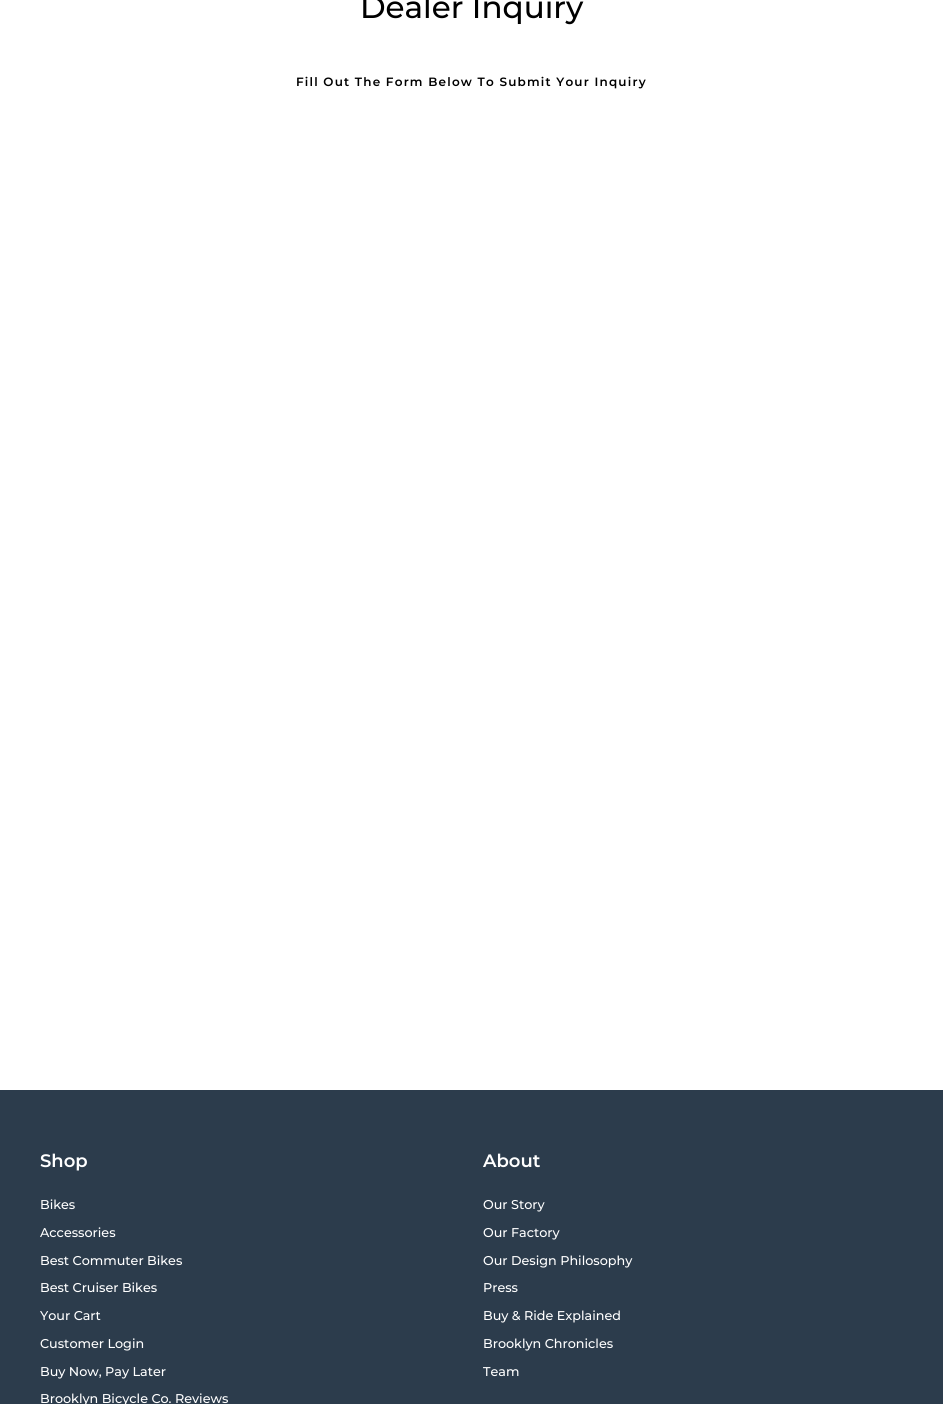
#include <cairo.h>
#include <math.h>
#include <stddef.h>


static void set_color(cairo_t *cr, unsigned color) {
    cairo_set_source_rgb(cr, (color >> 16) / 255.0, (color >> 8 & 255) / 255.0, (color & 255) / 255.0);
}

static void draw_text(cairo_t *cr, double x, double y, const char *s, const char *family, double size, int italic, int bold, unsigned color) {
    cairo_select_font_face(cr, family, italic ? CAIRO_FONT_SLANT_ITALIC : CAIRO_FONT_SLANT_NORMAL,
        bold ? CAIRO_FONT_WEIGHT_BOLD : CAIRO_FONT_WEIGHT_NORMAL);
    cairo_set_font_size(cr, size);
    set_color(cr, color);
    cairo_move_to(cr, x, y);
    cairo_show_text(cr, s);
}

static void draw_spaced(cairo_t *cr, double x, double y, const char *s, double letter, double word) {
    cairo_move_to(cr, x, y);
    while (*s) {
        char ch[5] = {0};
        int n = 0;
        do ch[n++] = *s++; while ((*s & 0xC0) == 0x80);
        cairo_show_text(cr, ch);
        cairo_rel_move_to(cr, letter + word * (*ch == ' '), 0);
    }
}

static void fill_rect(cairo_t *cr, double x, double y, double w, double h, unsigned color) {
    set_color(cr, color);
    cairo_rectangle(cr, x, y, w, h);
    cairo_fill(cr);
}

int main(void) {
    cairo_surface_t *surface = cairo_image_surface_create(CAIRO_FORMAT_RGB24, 943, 1404);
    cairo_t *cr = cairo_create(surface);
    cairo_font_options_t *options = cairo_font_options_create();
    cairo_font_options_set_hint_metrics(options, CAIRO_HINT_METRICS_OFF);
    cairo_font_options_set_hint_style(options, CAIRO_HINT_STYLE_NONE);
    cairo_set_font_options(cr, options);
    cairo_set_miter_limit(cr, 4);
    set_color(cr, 0xFFFFFF);
    cairo_paint(cr);
    draw_text(cr, 360, 18, "Dealer Inquiry", "Montserrat Medium", 31, 0, 0, 0x000000);
    cairo_select_font_face(cr, "Montserrat SemiBold", CAIRO_FONT_SLANT_NORMAL, CAIRO_FONT_WEIGHT_NORMAL);
    cairo_set_font_size(cr, 12);
    draw_spaced(cr, 296, 86, "Fill Out The Form Below To Submit Your Inquiry", 1.2, 0);
    fill_rect(cr, 0, 1090, 943, 314, 0x2C3C4C);
    draw_text(cr, 40, 1167, "Shop", "Montserrat SemiBold", 18, 0, 0, 0xFFFFFF);
    draw_text(cr, 40, 1209, "Bikes", "Montserrat Medium", 12.75, 0, 0, 0xFFFFFF);
    draw_text(cr, 40, 1237, "Accessories", "Montserrat Medium", 12.75, 0, 0, 0xFFFFFF);
    draw_text(cr, 40, 1265, "Best Commuter Bikes", "Montserrat Medium", 12.75, 0, 0, 0xFFFFFF);
    draw_text(cr, 40, 1292, "Best Cruiser Bikes", "Montserrat Medium", 12.75, 0, 0, 0xFFFFFF);
    draw_text(cr, 40, 1320, "Your Cart", "Montserrat Medium", 12.75, 0, 0, 0xFFFFFF);
    draw_text(cr, 40, 1348, "Customer Login", "Montserrat Medium", 12.75, 0, 0, 0xFFFFFF);
    draw_text(cr, 40, 1376, "Buy Now, Pay Later", "Montserrat Medium", 12.75, 0, 0, 0xFFFFFF);
    draw_text(cr, 40, 1403, "Brooklyn Bicycle Co. Reviews", "Montserrat Medium", 12.75, 0, 0, 0xFFFFFF);
    draw_text(cr, 483, 1167, "About", "Montserrat SemiBold", 18, 0, 0, 0xFFFFFF);
    draw_text(cr, 483, 1209, "Our Story", "Montserrat Medium", 12.75, 0, 0, 0xFFFFFF);
    draw_text(cr, 483, 1237, "Our Factory", "Montserrat Medium", 12.75, 0, 0, 0xFFFFFF);
    draw_text(cr, 483, 1265, "Our Design Philosophy", "Montserrat Medium", 12.75, 0, 0, 0xFFFFFF);
    draw_text(cr, 483, 1292, "Press", "Montserrat Medium", 12.75, 0, 0, 0xFFFFFF);
    draw_text(cr, 483, 1320, "Buy & Ride Explained", "Montserrat Medium", 12.75, 0, 0, 0xFFFFFF);
    draw_text(cr, 483, 1348, "Brooklyn Chronicles", "Montserrat Medium", 12.75, 0, 0, 0xFFFFFF);
    draw_text(cr, 483, 1376, "Team", "Montserrat Medium", 12.75, 0, 0, 0xFFFFFF);
    cairo_surface_write_to_png(surface, "output.png");
    cairo_font_options_destroy(options);
    cairo_destroy(cr);
    cairo_surface_destroy(surface);
    return 0;
}
